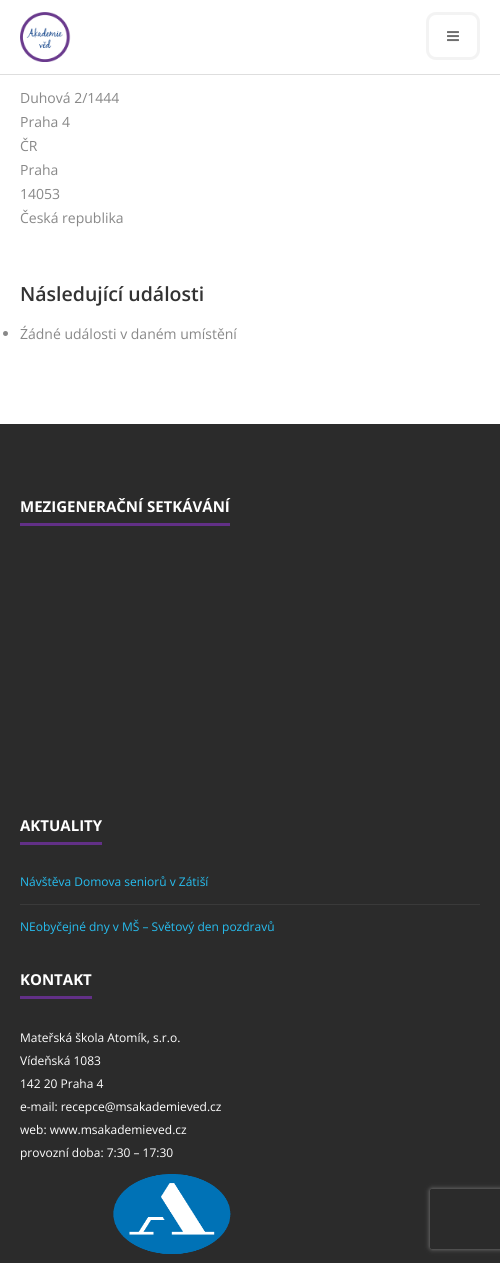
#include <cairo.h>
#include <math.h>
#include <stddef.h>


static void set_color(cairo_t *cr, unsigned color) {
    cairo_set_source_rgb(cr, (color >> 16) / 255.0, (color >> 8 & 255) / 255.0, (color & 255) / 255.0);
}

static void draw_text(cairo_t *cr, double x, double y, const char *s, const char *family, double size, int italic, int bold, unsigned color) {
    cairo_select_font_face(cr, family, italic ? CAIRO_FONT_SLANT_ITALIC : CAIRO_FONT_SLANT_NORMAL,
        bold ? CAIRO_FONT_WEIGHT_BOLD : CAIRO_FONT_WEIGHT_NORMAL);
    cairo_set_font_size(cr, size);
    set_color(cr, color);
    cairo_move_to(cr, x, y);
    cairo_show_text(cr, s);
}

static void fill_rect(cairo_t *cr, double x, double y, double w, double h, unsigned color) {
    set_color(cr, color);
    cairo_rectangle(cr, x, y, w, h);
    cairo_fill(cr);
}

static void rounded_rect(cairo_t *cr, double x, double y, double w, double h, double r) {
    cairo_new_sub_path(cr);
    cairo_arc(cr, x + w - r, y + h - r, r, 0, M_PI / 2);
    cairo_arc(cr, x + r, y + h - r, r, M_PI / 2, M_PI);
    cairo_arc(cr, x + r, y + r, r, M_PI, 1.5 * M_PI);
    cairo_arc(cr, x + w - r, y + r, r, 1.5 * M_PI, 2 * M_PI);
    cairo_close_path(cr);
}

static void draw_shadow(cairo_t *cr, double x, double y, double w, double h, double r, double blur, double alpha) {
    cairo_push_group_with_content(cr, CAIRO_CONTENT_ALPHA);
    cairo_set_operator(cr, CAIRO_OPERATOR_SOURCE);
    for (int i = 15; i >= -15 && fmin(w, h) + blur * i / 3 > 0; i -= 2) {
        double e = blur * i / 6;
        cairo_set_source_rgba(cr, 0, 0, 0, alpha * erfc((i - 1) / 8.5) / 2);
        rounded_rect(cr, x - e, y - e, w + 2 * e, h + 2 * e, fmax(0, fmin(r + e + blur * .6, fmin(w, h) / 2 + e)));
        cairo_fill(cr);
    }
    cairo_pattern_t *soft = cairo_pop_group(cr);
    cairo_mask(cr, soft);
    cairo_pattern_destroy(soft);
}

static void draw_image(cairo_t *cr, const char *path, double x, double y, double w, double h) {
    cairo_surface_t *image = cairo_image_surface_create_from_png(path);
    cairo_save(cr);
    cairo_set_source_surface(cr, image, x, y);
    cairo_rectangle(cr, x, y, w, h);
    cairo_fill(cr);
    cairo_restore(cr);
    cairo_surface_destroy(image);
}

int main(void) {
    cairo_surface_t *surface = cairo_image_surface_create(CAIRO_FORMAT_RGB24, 500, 1263);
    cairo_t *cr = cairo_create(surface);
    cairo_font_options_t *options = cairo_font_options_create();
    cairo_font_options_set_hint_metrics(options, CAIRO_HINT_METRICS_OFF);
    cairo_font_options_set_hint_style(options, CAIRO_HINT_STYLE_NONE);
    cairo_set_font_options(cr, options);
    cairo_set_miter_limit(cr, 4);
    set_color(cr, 0xFFFFFF);
    cairo_paint(cr);
    cairo_set_source_rgba(cr, 0.867, 0.867, 0.867, 0.95);
    cairo_rectangle(cr, 0, 74, 500, 1);
    cairo_fill(cr);
    draw_image(cr, "assets/img1.png", 20, 12, 51, 50);
    rounded_rect(cr, 427.5, 13.5, 51, 45, 8.5);
    set_color(cr, 0xF3F3F3);
    cairo_set_line_width(cr, 3);
    cairo_stroke(cr);
    draw_image(cr, "assets/img2.png", 447, 31, 12, 11);
    draw_text(cr, 20, 103, "Duhová 2/1444", "Open Sans", 14, 0, 0, 0x888888);
    draw_text(cr, 20, 127, "Praha 4", "Open Sans", 14, 0, 0, 0x888888);
    draw_text(cr, 20, 151, "ČR", "Open Sans", 14, 0, 0, 0x888888);
    draw_text(cr, 20, 175, "Praha", "Open Sans", 14, 0, 0, 0x888888);
    draw_text(cr, 20, 199, "14053", "Open Sans", 14, 0, 0, 0x888888);
    draw_text(cr, 20, 223, "Česká republika", "Open Sans", 14, 0, 0, 0x888888);
    draw_text(cr, 20, 301, "Následující události", "Open Sans SemiBold", 19.5, 0, 0, 0x333333);
    set_color(cr, 0x888888);
    cairo_new_path(cr);
    cairo_arc(cr, 5.5, 333.5, 2.5, 0, 2 * M_PI);
    cairo_fill(cr);
    draw_text(cr, 20, 339, "Źádné události v daném umístění", "Open Sans", 14, 0, 0, 0x888888);
    fill_rect(cr, 0, 424, 500, 839, 0x2B2B2B);
    draw_text(cr, 20, 512, "MEZIGENERAČNÍ SETKÁVÁNÍ", "Open Sans", 15, 0, 1, 0xFFFFFF);
    fill_rect(cr, 20, 523, 210, 3, 0x623087);
    draw_text(cr, 20, 831, "AKTUALITY", "Open Sans", 15, 0, 1, 0xFFFFFF);
    fill_rect(cr, 20, 842, 82, 3, 0x623087);
    fill_rect(cr, 20, 904, 460, 1, 0x3A3A3A);
    draw_text(cr, 20, 886, "Návštěva Domova seniorů v Zátiší", "Open Sans", 12, 0, 0, 0x26BDEF);
    draw_text(cr, 20, 931, "NEobyčejné dny v MŠ – Světový den pozdravů", "Open Sans", 12, 0, 0, 0x26BDEF);
    draw_text(cr, 20, 985, "KONTAKT", "Open Sans", 15, 0, 1, 0xFFFFFF);
    fill_rect(cr, 20, 996, 72, 3, 0x623087);
    draw_text(cr, 20, 1042, "Mateřská škola Atomík, s.r.o.", "Open Sans", 12, 0, 0, 0xFFFFFF);
    draw_text(cr, 20, 1065, "Vídeňská 1083", "Open Sans", 12, 0, 0, 0xFFFFFF);
    draw_text(cr, 20, 1088, "142 20 Praha 4", "Open Sans", 12, 0, 0, 0xFFFFFF);
    draw_text(cr, 20, 1111, "e-mail: recepce@msakademieved.cz", "Open Sans", 12, 0, 0, 0xFFFFFF);
    draw_text(cr, 20, 1134, "web: www.msakademieved.cz", "Open Sans", 12, 0, 0, 0xFFFFFF);
    draw_text(cr, 20, 1157, "provozní doba: 7:30 – 17:30", "Open Sans", 12, 0, 0, 0xFFFFFF);
    draw_image(cr, "assets/img3.png", 113, 1174, 118, 80);
    cairo_save(cr);
    cairo_set_fill_rule(cr, CAIRO_FILL_RULE_EVEN_ODD);
    cairo_new_path(cr);
    cairo_move_to(cr, 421, 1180);
    cairo_line_to(cr, 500, 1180);
    cairo_line_to(cr, 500, 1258);
    cairo_line_to(cr, 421, 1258);
    cairo_close_path(cr);
    cairo_move_to(cr, 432, 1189);
    cairo_line_to(cr, 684, 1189);
    cairo_curve_to(cr, 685, 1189, 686, 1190, 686, 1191);
    cairo_line_to(cr, 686, 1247);
    cairo_curve_to(cr, 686, 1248, 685, 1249, 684, 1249);
    cairo_line_to(cr, 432, 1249);
    cairo_curve_to(cr, 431, 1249, 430, 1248, 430, 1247);
    cairo_line_to(cr, 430, 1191);
    cairo_curve_to(cr, 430, 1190, 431, 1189, 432, 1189);
    cairo_close_path(cr);
    cairo_clip(cr);
    set_color(cr, 0x808080);
    draw_shadow(cr, 430, 1189, 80, 60, 2, 2.5, 1);
    cairo_restore(cr);
    cairo_surface_write_to_png(surface, "output.png");
    cairo_font_options_destroy(options);
    cairo_destroy(cr);
    cairo_surface_destroy(surface);
    return 0;
}
